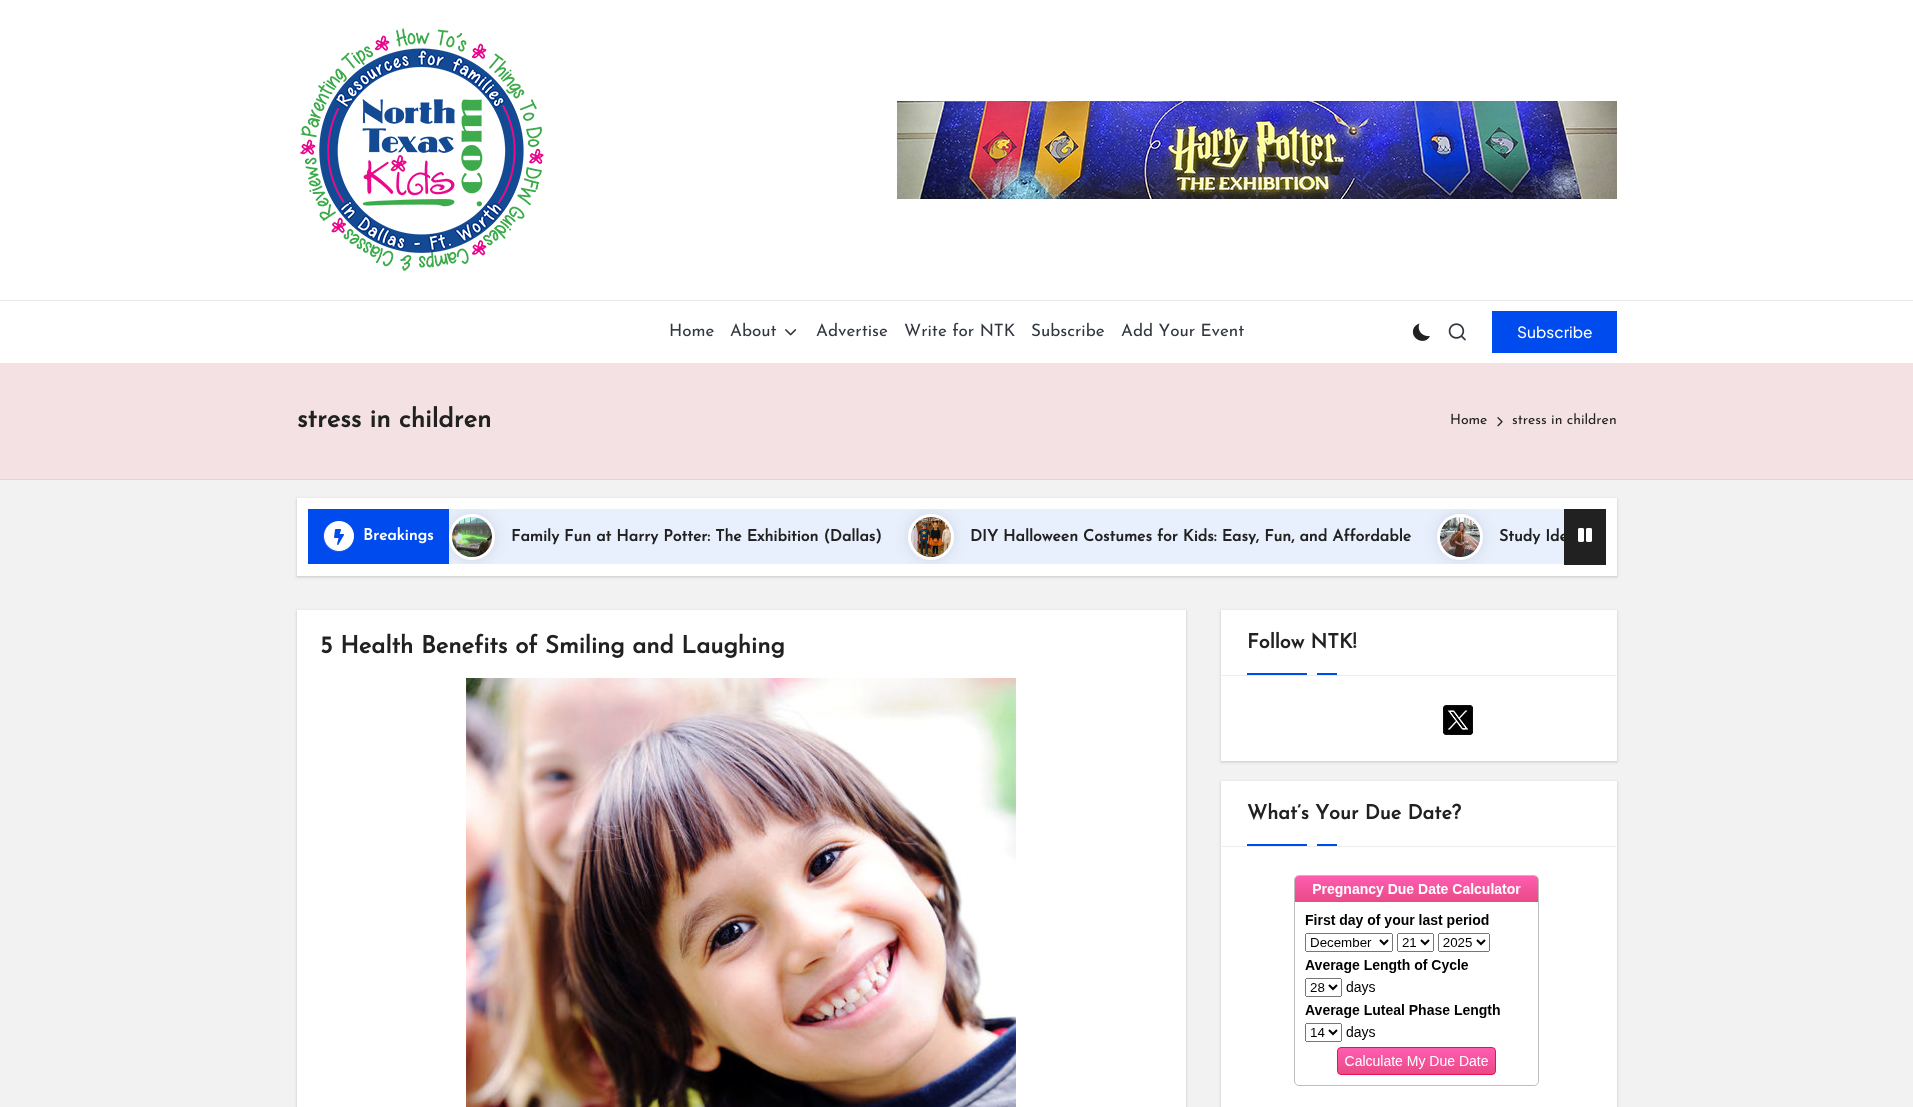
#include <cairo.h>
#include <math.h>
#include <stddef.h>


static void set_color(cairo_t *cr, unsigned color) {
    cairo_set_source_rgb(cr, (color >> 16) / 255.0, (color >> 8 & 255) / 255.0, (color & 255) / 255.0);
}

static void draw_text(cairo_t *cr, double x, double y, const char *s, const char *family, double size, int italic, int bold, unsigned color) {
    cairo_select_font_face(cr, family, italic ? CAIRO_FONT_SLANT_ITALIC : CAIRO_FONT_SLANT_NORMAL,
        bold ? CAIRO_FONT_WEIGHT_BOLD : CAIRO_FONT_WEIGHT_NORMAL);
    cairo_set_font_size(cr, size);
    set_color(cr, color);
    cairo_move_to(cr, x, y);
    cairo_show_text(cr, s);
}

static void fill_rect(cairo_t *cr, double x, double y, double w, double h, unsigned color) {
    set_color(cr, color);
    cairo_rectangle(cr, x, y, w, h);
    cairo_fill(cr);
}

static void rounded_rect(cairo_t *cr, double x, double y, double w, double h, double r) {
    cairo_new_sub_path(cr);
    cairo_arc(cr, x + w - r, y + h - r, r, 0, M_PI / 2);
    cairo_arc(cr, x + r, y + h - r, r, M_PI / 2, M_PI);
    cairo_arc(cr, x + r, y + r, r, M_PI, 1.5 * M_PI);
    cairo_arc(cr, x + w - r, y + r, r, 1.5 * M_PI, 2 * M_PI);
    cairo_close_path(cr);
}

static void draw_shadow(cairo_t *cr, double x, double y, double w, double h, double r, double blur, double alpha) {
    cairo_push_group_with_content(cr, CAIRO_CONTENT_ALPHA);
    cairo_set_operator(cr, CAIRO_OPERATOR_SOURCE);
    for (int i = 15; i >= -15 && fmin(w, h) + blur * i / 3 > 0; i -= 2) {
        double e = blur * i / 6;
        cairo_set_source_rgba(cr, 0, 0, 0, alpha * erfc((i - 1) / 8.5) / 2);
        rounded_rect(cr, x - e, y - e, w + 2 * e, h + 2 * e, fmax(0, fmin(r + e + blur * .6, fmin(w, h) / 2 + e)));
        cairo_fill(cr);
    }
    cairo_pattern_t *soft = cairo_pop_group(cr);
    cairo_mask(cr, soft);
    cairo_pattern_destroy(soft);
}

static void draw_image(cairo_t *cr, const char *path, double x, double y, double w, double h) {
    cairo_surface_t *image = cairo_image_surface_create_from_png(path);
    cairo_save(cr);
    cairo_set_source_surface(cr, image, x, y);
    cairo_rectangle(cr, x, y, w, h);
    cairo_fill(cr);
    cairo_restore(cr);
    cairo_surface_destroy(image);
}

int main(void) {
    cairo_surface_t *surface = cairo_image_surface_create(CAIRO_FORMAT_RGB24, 1913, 1107);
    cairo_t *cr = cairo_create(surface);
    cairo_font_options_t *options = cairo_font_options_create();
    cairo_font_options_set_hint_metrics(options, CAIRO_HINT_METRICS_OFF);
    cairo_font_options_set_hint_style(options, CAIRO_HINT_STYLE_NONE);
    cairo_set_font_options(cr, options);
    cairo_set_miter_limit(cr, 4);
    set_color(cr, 0xF2F2F2);
    cairo_paint(cr);
    fill_rect(cr, 0, 0, 1913, 300, 0xFFFFFF);
    draw_image(cr, "assets/img1.png", 300, 28, 244, 243);
    draw_image(cr, "assets/img2.png", 897, 101, 720, 98);
    fill_rect(cr, 0, 301, 1913, 62, 0xFFFFFF);
    fill_rect(cr, 0, 300, 1913, 1, 0xE9E9E9);
    fill_rect(cr, 0, 363, 1913, 1, 0xE9E9E9);
    draw_text(cr, 669, 336, "Home", "Josefin Sans Thin", 17, 0, 0, 0x30373E);
    draw_text(cr, 730, 336, "About", "Josefin Sans Thin", 17, 0, 0, 0x30373E);
    draw_image(cr, "assets/img3.png", 785, 329, 12, 7);
    draw_text(cr, 816, 336, "Advertise", "Josefin Sans Thin", 17, 0, 0, 0x30373E);
    draw_text(cr, 904, 336, "Write for NTK", "Josefin Sans Thin", 17, 0, 0, 0x30373E);
    draw_text(cr, 1031, 336, "Subscribe", "Josefin Sans Thin", 17, 0, 0, 0x30373E);
    draw_text(cr, 1121, 336, "Add Your Event", "Josefin Sans Thin", 17, 0, 0, 0x30373E);
    set_color(cr, 0x212121);
    cairo_new_path(cr);
    cairo_move_to(cr, 1430, 336);
    cairo_curve_to(cr, 1422.5, 337, 1416.5, 330.5, 1419.5, 323.5);
    cairo_curve_to(cr, 1417.5, 324, 1415.5, 325.5, 1414, 327.5);
    cairo_curve_to(cr, 1408.5, 338.5, 1425, 346.5, 1430, 336);
    cairo_close_path(cr);
    cairo_fill(cr);
    draw_image(cr, "assets/img4.png", 1448, 323, 18, 18);
    fill_rect(cr, 1492, 311, 125, 42, 0x004BED);
    draw_text(cr, 1517, 338, "Subscribe", "Plus Jakarta Sans Medium", 15.5, 0, 0, 0xFFFFFF);
    fill_rect(cr, 0, 364, 1913, 115, 0xF3E1E3);
    fill_rect(cr, 0, 479, 1913, 1, 0xE4D3D5);
    draw_text(cr, 297, 427, "stress in children", "Josefin Sans", 26, 0, 1, 0x212121);
    draw_text(cr, 1450, 424, "Home", "Josefin Sans Thin", 14, 0, 0, 0x212121);
    draw_image(cr, "assets/img5.png", 1497, 417, 6, 10);
    draw_text(cr, 1512, 424, "stress in children", "Josefin Sans Thin", 14, 0, 0, 0x212121);
    set_color(cr, 0x000000);
    draw_shadow(cr, 297, 499, 1320, 78, 0, 1.5, 0.18);
    fill_rect(cr, 297, 498, 1320, 78, 0xFFFFFF);
    fill_rect(cr, 308, 509, 141, 55, 0x004BED);
    set_color(cr, 0xFFFFFF);
    cairo_arc(cr, 339, 536, 15, 0, 2 * M_PI);
    cairo_fill(cr);
    cairo_arc(cr, 338.5, 536.5, 14.5, 0, 2 * M_PI);
    cairo_set_source_rgba(cr, 1, 1, 1, 0.1);
    cairo_stroke(cr);
    draw_image(cr, "assets/img6.png", 334, 529, 10, 16);
    draw_text(cr, 363, 540, "Breakings", "Josefin Sans", 16, 0, 1, 0xFFFFFF);
    fill_rect(cr, 449, 509, 1115, 55, 0xE8EFFD);
    cairo_save(cr);
    cairo_rectangle(cr, 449, 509, 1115, 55);
    cairo_clip(cr);
    set_color(cr, 0x000000);
    draw_shadow(cr, 449, 514, 46, 46, 23, 7.5, 0.09);
    cairo_restore(cr);
    cairo_arc(cr, 472, 537, 21.5, 0, 2 * M_PI);
    set_color(cr, 0xFFFFFF);
    cairo_set_line_width(cr, 3);
    cairo_stroke(cr);
    draw_image(cr, "assets/img7.png", 452, 517, 40, 40);
    draw_text(cr, 511, 541, "Family Fun at Harry Potter: The Exhibition (Dallas)", "Josefin Sans", 16, 0, 1, 0x212121);
    cairo_save(cr);
    cairo_rectangle(cr, 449, 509, 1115, 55);
    cairo_clip(cr);
    set_color(cr, 0x000000);
    draw_shadow(cr, 908, 514, 46, 46, 23, 7.5, 0.09);
    cairo_restore(cr);
    cairo_arc(cr, 931, 537, 21.5, 0, 2 * M_PI);
    set_color(cr, 0xFFFFFF);
    cairo_stroke(cr);
    draw_image(cr, "assets/img8.png", 911, 517, 40, 40);
    draw_text(cr, 970, 541, "DIY Halloween Costumes for Kids: Easy, Fun, and Affordable", "Josefin Sans", 16, 0, 1, 0x212121);
    cairo_save(cr);
    cairo_rectangle(cr, 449, 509, 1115, 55);
    cairo_clip(cr);
    set_color(cr, 0x000000);
    draw_shadow(cr, 1437, 514, 46, 46, 23, 7.5, 0.09);
    cairo_restore(cr);
    cairo_arc(cr, 1460, 537, 21.5, 0, 2 * M_PI);
    set_color(cr, 0xFFFFFF);
    cairo_stroke(cr);
    draw_image(cr, "assets/img9.png", 1440, 517, 40, 40);
    cairo_save(cr);
    cairo_rectangle(cr, 449, 509, 1115, 55);
    cairo_clip(cr);
    draw_text(cr, 1499, 541, "Study Ide", "Josefin Sans", 16, 0, 1, 0x212121);
    cairo_restore(cr);
    fill_rect(cr, 1564, 509, 42, 56, 0x212121);
    draw_image(cr, "assets/img10.png", 1578, 528, 14, 14);
    set_color(cr, 0x000000);
    draw_shadow(cr, 297, 611, 889, 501, 0, 1.5, 0.18);
    fill_rect(cr, 297, 610, 889, 497, 0xFFFFFF);
    draw_text(cr, 320, 653, "5 Health Benefits of Smiling and Laughing", "Josefin Sans", 24, 0, 1, 0x212121);
    draw_image(cr, "assets/img11.png", 466, 678, 550, 429);
    set_color(cr, 0x000000);
    draw_shadow(cr, 1221, 611, 396, 151, 0, 1.5, 0.18);
    fill_rect(cr, 1221, 610, 396, 151, 0xFFFFFF);
    fill_rect(cr, 1222, 675, 394, 1, 0xECECEC);
    draw_text(cr, 1247, 648, "Follow NTK!", "Josefin Sans", 20, 0, 1, 0x212121);
    fill_rect(cr, 1247, 673, 60, 2, 0x004BED);
    fill_rect(cr, 1317, 673, 20, 2, 0x004BED);
    draw_image(cr, "assets/img12.png", 1443, 705, 30, 30);
    set_color(cr, 0x000000);
    draw_shadow(cr, 1221, 782, 396, 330, 0, 1.5, 0.18);
    fill_rect(cr, 1221, 781, 396, 326, 0xFFFFFF);
    fill_rect(cr, 1222, 846, 394, 1, 0xECECEC);
    draw_text(cr, 1247, 819, "What’s Your Due Date?", "Josefin Sans", 20, 0, 1, 0x212121);
    fill_rect(cr, 1247, 844, 60, 2, 0x004BED);
    fill_rect(cr, 1317, 844, 20, 2, 0x004BED);
    draw_image(cr, "assets/img13.png", 1294, 875, 245, 211);
    cairo_surface_write_to_png(surface, "output.png");
    cairo_font_options_destroy(options);
    cairo_destroy(cr);
    cairo_surface_destroy(surface);
    return 0;
}
